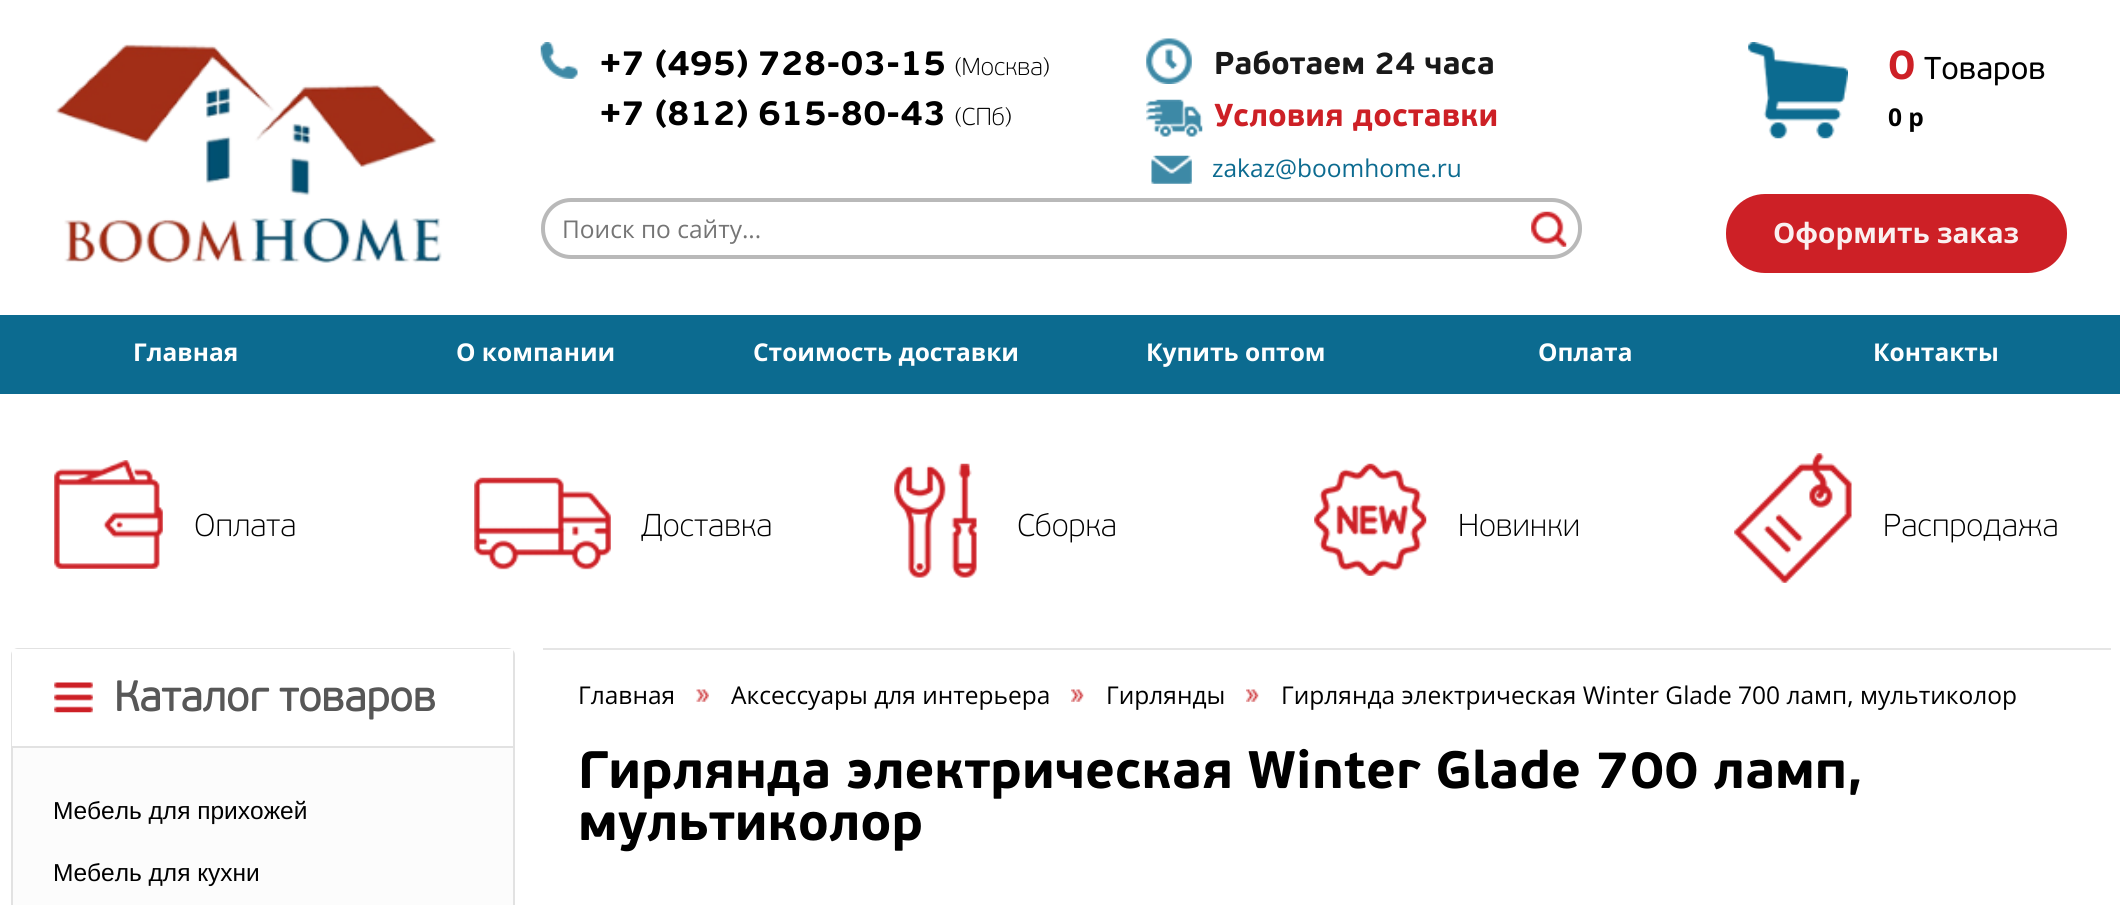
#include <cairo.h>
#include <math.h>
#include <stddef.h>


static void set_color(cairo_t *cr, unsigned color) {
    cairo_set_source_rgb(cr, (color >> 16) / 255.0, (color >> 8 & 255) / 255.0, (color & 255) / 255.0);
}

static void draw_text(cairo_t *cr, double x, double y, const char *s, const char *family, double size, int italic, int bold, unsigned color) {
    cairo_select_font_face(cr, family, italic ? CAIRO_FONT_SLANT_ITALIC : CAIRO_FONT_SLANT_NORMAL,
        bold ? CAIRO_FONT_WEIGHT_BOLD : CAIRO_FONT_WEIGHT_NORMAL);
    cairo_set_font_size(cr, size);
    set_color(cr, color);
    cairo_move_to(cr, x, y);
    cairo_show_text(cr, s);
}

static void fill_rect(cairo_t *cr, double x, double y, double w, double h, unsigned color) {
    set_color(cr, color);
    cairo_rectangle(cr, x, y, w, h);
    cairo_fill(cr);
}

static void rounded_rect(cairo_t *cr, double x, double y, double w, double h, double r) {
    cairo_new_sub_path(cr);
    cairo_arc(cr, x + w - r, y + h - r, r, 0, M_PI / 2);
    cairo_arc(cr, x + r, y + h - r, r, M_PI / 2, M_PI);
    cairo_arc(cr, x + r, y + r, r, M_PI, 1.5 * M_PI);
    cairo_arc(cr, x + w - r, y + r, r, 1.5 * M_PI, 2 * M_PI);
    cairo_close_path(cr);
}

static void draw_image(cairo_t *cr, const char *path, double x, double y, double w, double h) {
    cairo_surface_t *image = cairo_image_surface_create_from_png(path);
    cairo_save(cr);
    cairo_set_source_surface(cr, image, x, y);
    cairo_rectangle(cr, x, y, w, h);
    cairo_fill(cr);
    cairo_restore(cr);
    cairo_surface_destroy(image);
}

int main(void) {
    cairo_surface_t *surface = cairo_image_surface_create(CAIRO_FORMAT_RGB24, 2120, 905);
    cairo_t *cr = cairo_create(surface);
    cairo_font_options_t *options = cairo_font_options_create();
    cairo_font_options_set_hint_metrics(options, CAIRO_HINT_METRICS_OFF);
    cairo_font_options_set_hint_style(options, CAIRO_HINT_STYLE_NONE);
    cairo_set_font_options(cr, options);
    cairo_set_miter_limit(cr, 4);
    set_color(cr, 0xFFFFFF);
    cairo_paint(cr);
    draw_image(cr, "assets/img1.png", 55, 44, 387, 219);
    draw_image(cr, "assets/img2.png", 540, 42, 38, 37);
    draw_text(cr, 599, 75, "+7 (495) 728-03-15", "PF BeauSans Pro", 35, 0, 1, 0x000000);
    draw_text(cr, 955, 75, "(Москва)", "PF BeauSans Pro Thin", 24.5, 0, 0, 0x000000);
    draw_text(cr, 599, 125, "+7 (812) 615-80-43", "PF BeauSans Pro", 35, 0, 1, 0x000000);
    draw_text(cr, 955, 125, "(СПб)", "PF BeauSans Pro Thin", 24.5, 0, 0, 0x000000);
    draw_image(cr, "assets/img3.png", 1146, 38, 46, 46);
    draw_text(cr, 1214, 74, "Работаем 24 часа", "PF BeauSans Pro", 31.5, 0, 1, 0x191919);
    draw_image(cr, "assets/img4.png", 1146, 99, 57, 38);
    draw_text(cr, 1214, 126, "Условия доставки", "PF BeauSans Pro", 31.5, 0, 1, 0xCD2026);
    draw_image(cr, "assets/img5.png", 1151, 155, 41, 29);
    draw_text(cr, 1212, 177, "zakaz@boomhome.ru", "Open Sans", 24.5, 0, 0, 0x0C6B90);
    rounded_rect(cr, 543, 200, 1037, 57, 28);
    set_color(cr, 0xB9B9B9);
    cairo_set_line_width(cr, 4);
    cairo_stroke(cr);
    draw_text(cr, 562, 238, "Поиск по сайту...", "Open Sans", 24.5, 0, 0, 0x757575);
    draw_image(cr, "assets/img6.png", 1531, 211, 36, 36);
    draw_image(cr, "assets/img7.png", 1748, 42, 100, 97);
    draw_text(cr, 1888, 79, "0", "PF BeauSans Pro", 42, 0, 1, 0xCD2026);
    draw_text(cr, 1924, 79, "Товаров", "PF BeauSans Pro", 31.5, 0, 0, 0x000000);
    draw_text(cr, 1888, 126, "0 p", "Open Sans", 24.5, 0, 1, 0x000000);
    set_color(cr, 0xCD2026);
    rounded_rect(cr, 1726, 194, 341, 79, 39);
    cairo_fill(cr);
    draw_text(cr, 1773, 243, "Оформить заказ", "Open Sans", 28, 0, 1, 0xFAF0F0);
    fill_rect(cr, 0, 315, 2120, 79, 0x0C6B90);
    draw_text(cr, 133, 361, "Главная", "Open Sans", 24.5, 0, 1, 0xFFFFFF);
    draw_text(cr, 456, 361, "О компании", "Open Sans", 24.5, 0, 1, 0xFFFFFF);
    draw_text(cr, 753, 361, "Стоимость доставки", "Open Sans", 24.5, 0, 1, 0xFFFFFF);
    draw_text(cr, 1146, 361, "Купить оптом", "Open Sans", 24.5, 0, 1, 0xFFFFFF);
    draw_text(cr, 1538, 361, "Оплата", "Open Sans", 24.5, 0, 1, 0xFFFFFF);
    draw_text(cr, 1873, 361, "Контакты", "Open Sans", 24.5, 0, 1, 0xFFFFFF);
    draw_image(cr, "assets/img8.png", 54, 460, 109, 109);
    draw_text(cr, 194, 536, "Оплата", "PF BeauSans Pro Thin", 31.5, 0, 0, 0x000000);
    draw_image(cr, "assets/img9.png", 474, 477, 137, 93);
    draw_text(cr, 641, 536, "Доставка", "PF BeauSans Pro Thin", 31.5, 0, 0, 0x000000);
    draw_image(cr, "assets/img10.png", 894, 463, 83, 115);
    draw_text(cr, 1017, 536, "Сборка", "PF BeauSans Pro Thin", 31.5, 0, 0, 0x000000);
    draw_image(cr, "assets/img11.png", 1314, 463, 113, 113);
    draw_text(cr, 1458, 536, "Новинки", "PF BeauSans Pro Thin", 31.5, 0, 0, 0x000000);
    draw_image(cr, "assets/img12.png", 1734, 453, 118, 130);
    draw_text(cr, 1883, 536, "Распродажа", "PF BeauSans Pro Thin", 31.5, 0, 0, 0x000000);
    set_color(cr, 0xFCFCFC);
    rounded_rect(cr, 12, 649, 502, 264, 6);
    cairo_fill_preserve(cr);
    set_color(cr, 0xE2E2E2);
    cairo_set_line_width(cr, 2);
    cairo_stroke(cr);
    fill_rect(cr, 12, 649, 501, 97, 0xFFFFFF);
    draw_image(cr, "assets/img13.png", 54, 682, 39, 31);
    fill_rect(cr, 12, 746, 501, 2, 0xE2E2E2);
    draw_text(cr, 114, 711, "Каталог товаров", "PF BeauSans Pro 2", 42, 0, 1, 0x575757);
    draw_text(cr, 53, 819, "Мебель для прихожей", "Liberation Sans", 24.5, 0, 0, 0x000000);
    draw_text(cr, 53, 881, "Мебель для кухни", "Liberation Sans", 24.5, 0, 0, 0x000000);
    fill_rect(cr, 543, 648, 1568, 2, 0xE5E5E5);
    draw_text(cr, 578, 704, "Главная", "Open Sans", 24.5, 0, 0, 0x000000);
    draw_image(cr, "assets/img14.png", 696, 689, 13, 13);
    draw_text(cr, 731, 704, "Аксессуары для интерьера", "Open Sans", 24.5, 0, 0, 0x000000);
    draw_image(cr, "assets/img15.png", 1071, 689, 13, 13);
    draw_text(cr, 1106, 704, "Гирлянды", "Open Sans", 24.5, 0, 0, 0x000000);
    draw_image(cr, "assets/img16.png", 1246, 689, 13, 13);
    draw_text(cr, 1281, 704, "Гирлянда электрическая Winter Glade 700 ламп, мультиколор", "Open Sans", 24.5, 0, 0, 0x000000);
    draw_text(cr, 578, 788, "Гирлянда электрическая Winter Glade 700 ламп,", "PF BeauSans Pro", 52.5, 0, 1, 0x000000);
    draw_text(cr, 578, 840, "мультиколор", "PF BeauSans Pro", 52.5, 0, 1, 0x000000);
    cairo_surface_write_to_png(surface, "output.png");
    cairo_font_options_destroy(options);
    cairo_destroy(cr);
    cairo_surface_destroy(surface);
    return 0;
}
